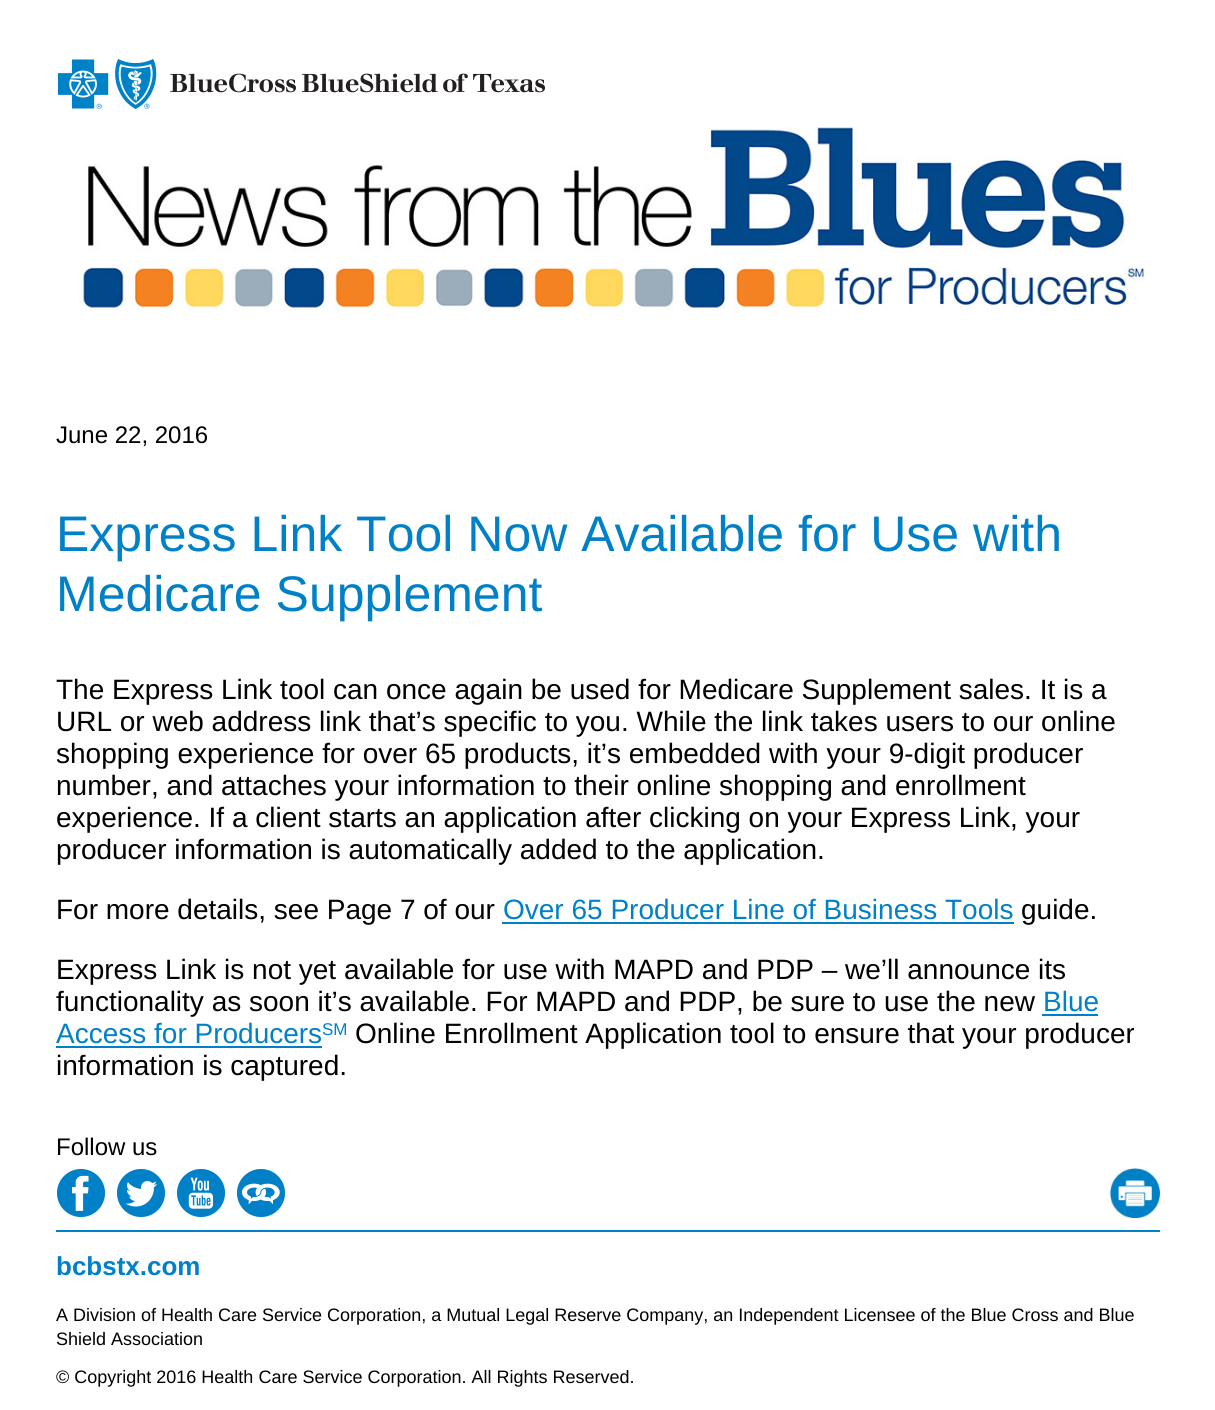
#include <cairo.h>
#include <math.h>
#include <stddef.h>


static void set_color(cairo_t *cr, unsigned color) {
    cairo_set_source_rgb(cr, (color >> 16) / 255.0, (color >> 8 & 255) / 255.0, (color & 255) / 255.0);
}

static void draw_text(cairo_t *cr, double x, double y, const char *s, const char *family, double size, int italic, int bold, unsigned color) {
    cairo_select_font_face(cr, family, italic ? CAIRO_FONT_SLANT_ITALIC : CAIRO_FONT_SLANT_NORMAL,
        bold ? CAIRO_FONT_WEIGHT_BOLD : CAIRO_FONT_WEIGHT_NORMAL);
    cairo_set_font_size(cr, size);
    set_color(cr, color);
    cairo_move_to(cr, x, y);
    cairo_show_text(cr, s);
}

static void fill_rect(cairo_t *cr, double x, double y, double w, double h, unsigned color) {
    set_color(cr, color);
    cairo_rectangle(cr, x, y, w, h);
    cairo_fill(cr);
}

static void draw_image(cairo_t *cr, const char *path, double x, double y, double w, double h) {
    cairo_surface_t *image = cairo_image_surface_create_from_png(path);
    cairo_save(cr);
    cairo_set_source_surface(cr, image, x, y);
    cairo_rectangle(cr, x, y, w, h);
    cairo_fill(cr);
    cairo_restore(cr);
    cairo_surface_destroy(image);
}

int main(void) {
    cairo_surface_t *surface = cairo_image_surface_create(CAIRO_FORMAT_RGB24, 1215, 1410);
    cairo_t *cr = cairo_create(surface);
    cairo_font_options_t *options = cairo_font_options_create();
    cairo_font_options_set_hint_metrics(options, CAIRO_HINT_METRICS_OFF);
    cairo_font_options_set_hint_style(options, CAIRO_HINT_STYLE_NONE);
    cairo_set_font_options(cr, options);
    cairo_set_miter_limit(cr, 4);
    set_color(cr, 0xFFFFFF);
    cairo_paint(cr);
    draw_image(cr, "assets/img1.png", 58, 59, 487, 50);
    draw_image(cr, "assets/img2.png", 78, 127, 1068, 184);
    draw_text(cr, 56, 443, "June 22, 2016", "Liberation Sans", 24, 0, 0, 0x000000);
    draw_text(cr, 56, 551, "Express Link Tool Now Available for Use with", "Liberation Sans", 50, 0, 0, 0x0080C7);
    draw_text(cr, 56, 611, "Medicare Supplement", "Liberation Sans", 50, 0, 0, 0x0080C7);
    draw_text(cr, 56, 699, "The Express Link tool can once again be used for Medicare Supplement sales. It is a", "Liberation Sans", 28, 0, 0, 0x000000);
    draw_text(cr, 56, 731, "URL or web address link that’s specific to you. While the link takes users to our online", "Liberation Sans", 28, 0, 0, 0x000000);
    draw_text(cr, 56, 763, "shopping experience for over 65 products, it’s embedded with your 9-digit producer", "Liberation Sans", 28, 0, 0, 0x000000);
    draw_text(cr, 56, 795, "number, and attaches your information to their online shopping and enrollment", "Liberation Sans", 28, 0, 0, 0x000000);
    draw_text(cr, 56, 827, "experience. If a client starts an application after clicking on your Express Link, your", "Liberation Sans", 28, 0, 0, 0x000000);
    draw_text(cr, 56, 859, "producer information is automatically added to the application.", "Liberation Sans", 28, 0, 0, 0x000000);
    draw_text(cr, 56, 919, "For more details, see Page 7 of our", "Liberation Sans", 28, 0, 0, 0x000000);
    draw_text(cr, 503, 919, "Over 65 Producer Line of Business Tools", "Liberation Sans", 28, 0, 0, 0x0080C7);
    fill_rect(cr, 502, 922, 512, 2, 0x0080C7);
    draw_text(cr, 1021, 919, "guide.", "Liberation Sans", 28, 0, 0, 0x000000);
    draw_text(cr, 56, 979, "Express Link is not yet available for use with MAPD and PDP – we’ll announce its", "Liberation Sans", 28, 0, 0, 0x000000);
    draw_text(cr, 56, 1011, "functionality as soon it’s available. For MAPD and PDP, be sure to use the new", "Liberation Sans", 28, 0, 0, 0x000000);
    draw_text(cr, 1043, 1011, "Blue", "Liberation Sans", 28, 0, 0, 0x0080C7);
    fill_rect(cr, 1042, 1014, 56, 2, 0x0080C7);
    draw_text(cr, 56, 1043, "Access for Producers", "Liberation Sans", 28, 0, 0, 0x0080C7);
    fill_rect(cr, 56, 1046, 266, 2, 0x0080C7);
    draw_text(cr, 322, 1035, "SM", "Liberation Sans", 17, 0, 0, 0x0080C7);
    draw_text(cr, 355, 1043, "Online Enrollment Application tool to ensure that your producer", "Liberation Sans", 28, 0, 0, 0x000000);
    draw_text(cr, 56, 1075, "information is captured.", "Liberation Sans", 28, 0, 0, 0x000000);
    draw_text(cr, 56, 1155, "Follow us", "Liberation Sans", 24, 0, 0, 0x000000);
    draw_image(cr, "assets/img3.png", 57, 1169, 48, 48);
    draw_image(cr, "assets/img4.png", 117, 1169, 48, 48);
    draw_image(cr, "assets/img5.png", 177, 1169, 48, 48);
    draw_image(cr, "assets/img6.png", 237, 1169, 48, 48);
    draw_image(cr, "assets/img7.png", 1110, 1168, 50, 50);
    fill_rect(cr, 56, 1230, 1104, 2, 0x0080C7);
    draw_text(cr, 56, 1275, "bcbstx.com", "Liberation Sans", 26, 0, 1, 0x0080C7);
    draw_text(cr, 56, 1321, "A Division of Health Care Service Corporation, a Mutual Legal Reserve Company, an Independent Licensee of the Blue Cross and Blue", "Liberation Sans", 18, 0, 0, 0x000000);
    draw_text(cr, 56, 1345, "Shield Association", "Liberation Sans", 18, 0, 0, 0x000000);
    draw_text(cr, 56, 1383, "© Copyright 2016 Health Care Service Corporation. All Rights Reserved.", "Liberation Sans", 18, 0, 0, 0x000000);
    cairo_surface_write_to_png(surface, "output.png");
    cairo_font_options_destroy(options);
    cairo_destroy(cr);
    cairo_surface_destroy(surface);
    return 0;
}
